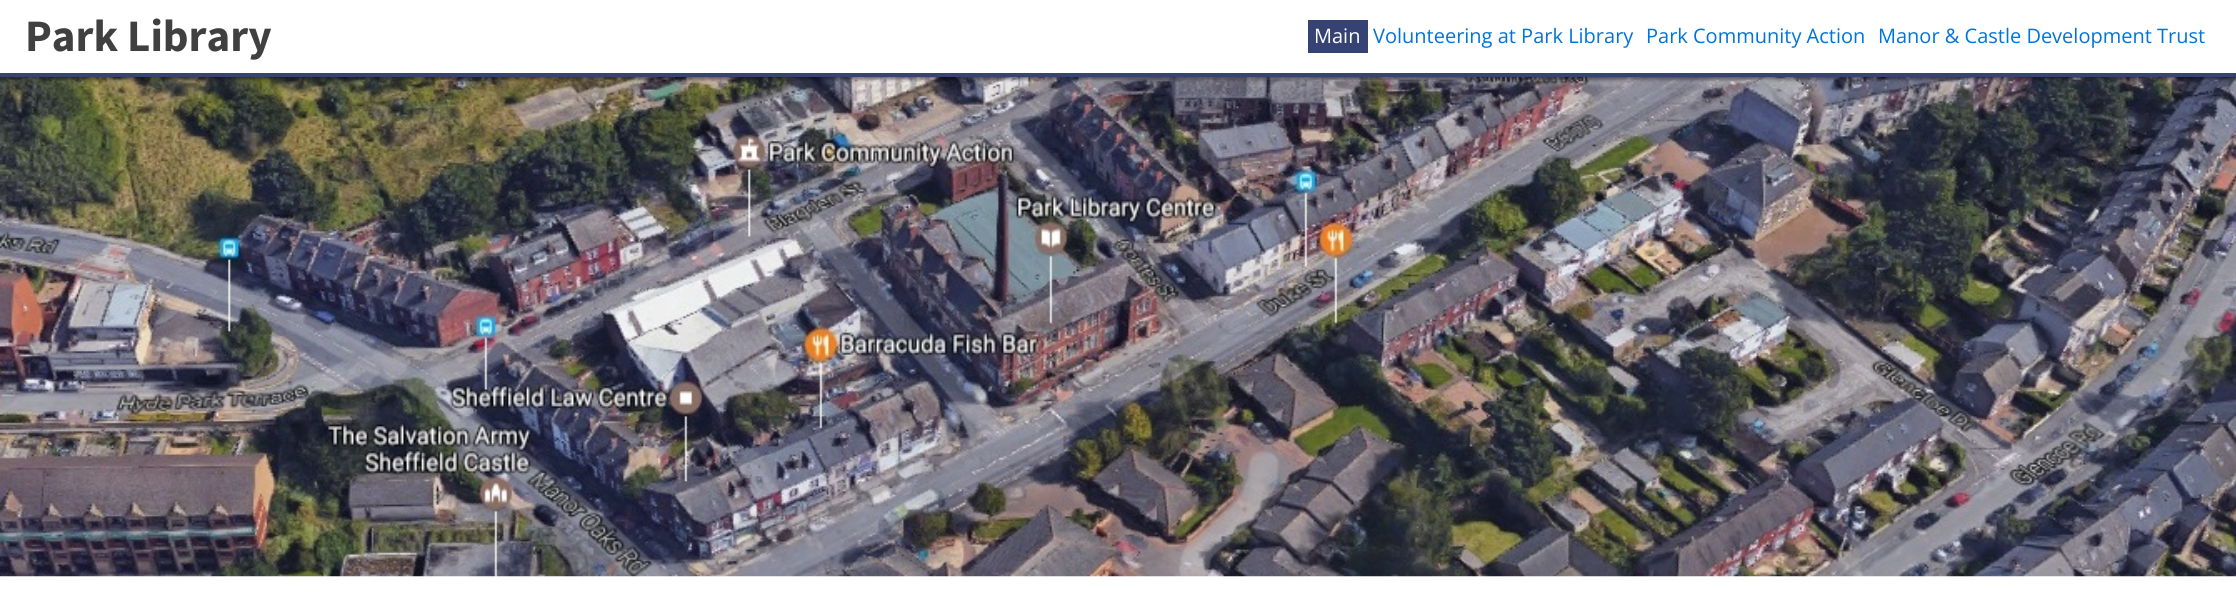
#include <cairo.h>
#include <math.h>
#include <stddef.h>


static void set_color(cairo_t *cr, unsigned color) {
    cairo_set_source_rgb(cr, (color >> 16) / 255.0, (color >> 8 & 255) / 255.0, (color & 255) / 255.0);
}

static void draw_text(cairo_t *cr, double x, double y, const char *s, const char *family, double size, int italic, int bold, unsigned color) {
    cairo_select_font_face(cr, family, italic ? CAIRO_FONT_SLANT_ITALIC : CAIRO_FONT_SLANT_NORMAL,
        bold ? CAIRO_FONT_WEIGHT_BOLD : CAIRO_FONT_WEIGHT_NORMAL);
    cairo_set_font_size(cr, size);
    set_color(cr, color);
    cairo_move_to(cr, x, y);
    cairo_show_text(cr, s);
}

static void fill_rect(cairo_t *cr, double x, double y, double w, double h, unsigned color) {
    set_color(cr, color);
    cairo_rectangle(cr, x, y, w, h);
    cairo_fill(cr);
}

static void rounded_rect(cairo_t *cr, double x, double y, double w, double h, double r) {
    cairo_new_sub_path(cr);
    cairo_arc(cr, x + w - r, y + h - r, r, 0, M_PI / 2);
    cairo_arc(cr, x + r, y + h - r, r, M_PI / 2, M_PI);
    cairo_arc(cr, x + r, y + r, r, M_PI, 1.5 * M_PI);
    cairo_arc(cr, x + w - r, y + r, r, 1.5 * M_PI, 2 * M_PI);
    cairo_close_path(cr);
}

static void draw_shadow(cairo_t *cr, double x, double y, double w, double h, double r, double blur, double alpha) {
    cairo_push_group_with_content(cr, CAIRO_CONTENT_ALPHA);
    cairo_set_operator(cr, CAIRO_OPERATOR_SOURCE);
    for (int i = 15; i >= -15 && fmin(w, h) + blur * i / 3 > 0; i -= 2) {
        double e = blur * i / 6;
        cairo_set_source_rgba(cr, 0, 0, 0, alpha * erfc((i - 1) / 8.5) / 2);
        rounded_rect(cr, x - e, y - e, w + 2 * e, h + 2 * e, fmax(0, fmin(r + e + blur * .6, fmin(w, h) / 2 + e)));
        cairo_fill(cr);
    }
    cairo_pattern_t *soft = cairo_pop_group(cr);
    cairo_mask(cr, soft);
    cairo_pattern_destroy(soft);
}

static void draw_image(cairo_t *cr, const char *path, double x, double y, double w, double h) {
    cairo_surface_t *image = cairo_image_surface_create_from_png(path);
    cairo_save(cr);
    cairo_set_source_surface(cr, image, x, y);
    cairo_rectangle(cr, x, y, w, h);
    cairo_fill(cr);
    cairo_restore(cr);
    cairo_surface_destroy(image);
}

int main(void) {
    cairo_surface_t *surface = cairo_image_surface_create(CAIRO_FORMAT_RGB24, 2236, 605);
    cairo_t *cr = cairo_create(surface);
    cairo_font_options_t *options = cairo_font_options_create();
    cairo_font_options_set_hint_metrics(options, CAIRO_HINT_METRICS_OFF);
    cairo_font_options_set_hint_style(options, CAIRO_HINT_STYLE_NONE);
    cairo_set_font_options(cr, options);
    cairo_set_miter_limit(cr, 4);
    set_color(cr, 0xFFFFFF);
    cairo_paint(cr);
    draw_image(cr, "assets/img1.png", 0, 77, 2236, 500);
    cairo_save(cr);
    cairo_rectangle(cr, 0, 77, 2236, 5);
    cairo_clip(cr);
    set_color(cr, 0x000000);
    draw_shadow(cr, -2, -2, 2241, 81, 0, 2, 0.5);
    cairo_restore(cr);
    fill_rect(cr, 0, 73, 2236, 4, 0x364373);
    draw_text(cr, 25, 51, "Park Library", "Source Sans Pro", 45, 0, 1, 0x404040);
    fill_rect(cr, 1308, 20, 60, 33, 0x364274);
    draw_text(cr, 1314, 43, "Main", "Open Sans", 20, 0, 0, 0xFFFFFF);
    draw_text(cr, 1373, 43, "Volunteering at Park Library", "Open Sans", 20, 0, 0, 0x0074DB);
    draw_text(cr, 1646, 43, "Park Community Action", "Open Sans", 20, 0, 0, 0x0074DB);
    draw_text(cr, 1878, 43, "Manor & Castle Development Trust", "Open Sans", 20, 0, 0, 0x0074DB);
    cairo_surface_write_to_png(surface, "output.png");
    cairo_font_options_destroy(options);
    cairo_destroy(cr);
    cairo_surface_destroy(surface);
    return 0;
}
